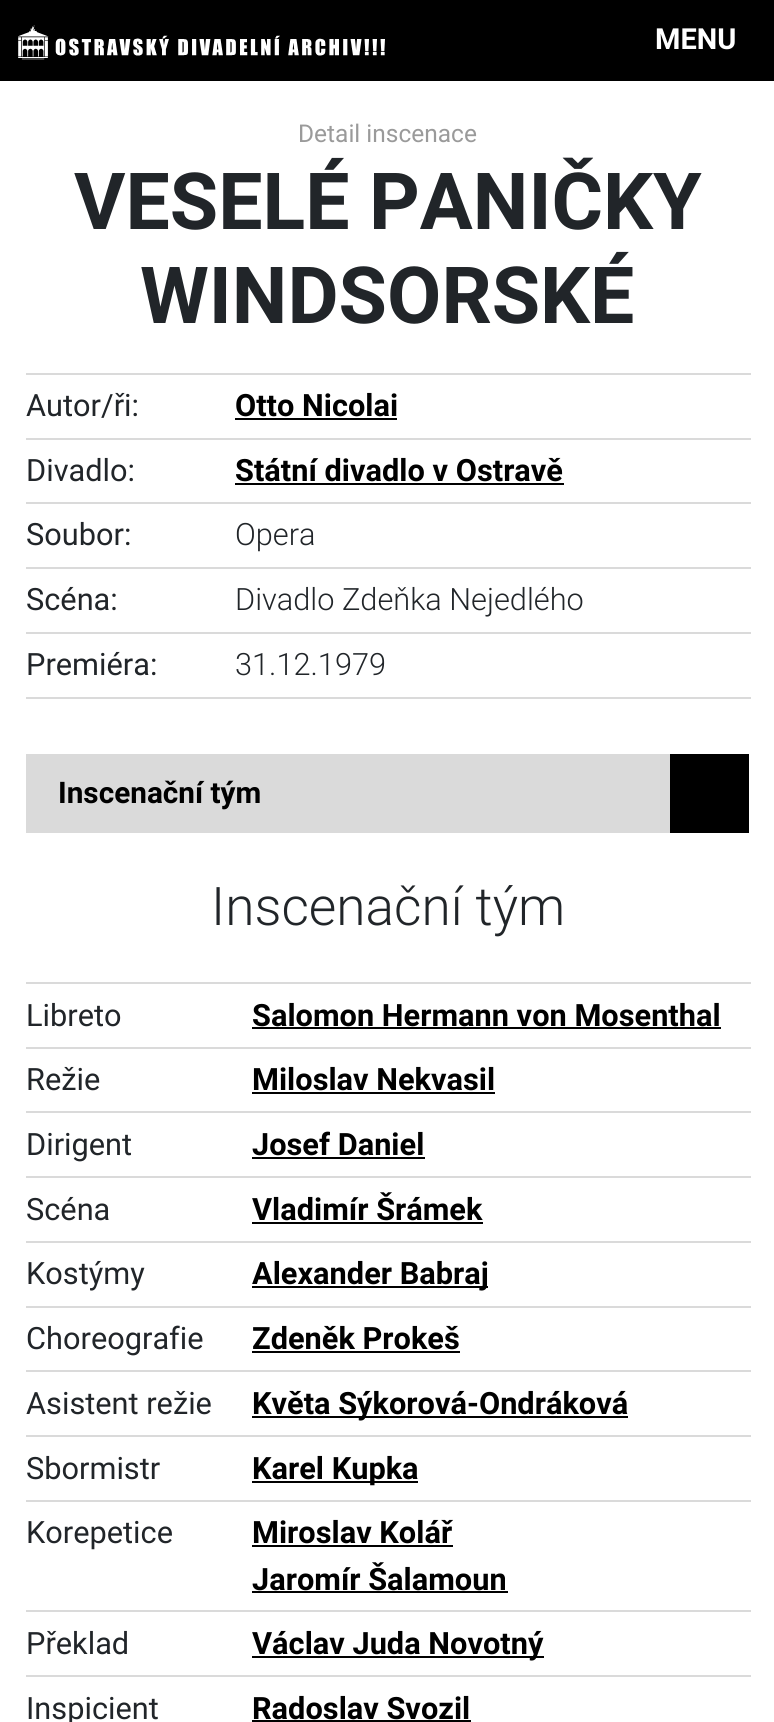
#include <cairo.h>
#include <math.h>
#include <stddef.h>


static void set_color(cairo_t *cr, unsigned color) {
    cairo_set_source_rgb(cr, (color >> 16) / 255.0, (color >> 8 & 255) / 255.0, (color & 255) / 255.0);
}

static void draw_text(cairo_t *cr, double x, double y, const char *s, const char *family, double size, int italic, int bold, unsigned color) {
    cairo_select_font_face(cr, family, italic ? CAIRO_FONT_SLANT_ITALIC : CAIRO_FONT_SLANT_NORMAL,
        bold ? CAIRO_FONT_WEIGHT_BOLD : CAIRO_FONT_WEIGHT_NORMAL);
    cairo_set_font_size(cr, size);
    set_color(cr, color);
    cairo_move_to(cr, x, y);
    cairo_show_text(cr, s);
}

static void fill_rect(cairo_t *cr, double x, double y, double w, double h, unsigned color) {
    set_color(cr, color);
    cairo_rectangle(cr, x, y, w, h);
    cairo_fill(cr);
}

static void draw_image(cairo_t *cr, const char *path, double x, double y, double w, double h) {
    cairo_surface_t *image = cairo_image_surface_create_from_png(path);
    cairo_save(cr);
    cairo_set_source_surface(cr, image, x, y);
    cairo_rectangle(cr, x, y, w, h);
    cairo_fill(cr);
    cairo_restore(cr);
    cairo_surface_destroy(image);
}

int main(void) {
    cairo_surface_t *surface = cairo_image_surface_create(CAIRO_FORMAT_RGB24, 774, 1722);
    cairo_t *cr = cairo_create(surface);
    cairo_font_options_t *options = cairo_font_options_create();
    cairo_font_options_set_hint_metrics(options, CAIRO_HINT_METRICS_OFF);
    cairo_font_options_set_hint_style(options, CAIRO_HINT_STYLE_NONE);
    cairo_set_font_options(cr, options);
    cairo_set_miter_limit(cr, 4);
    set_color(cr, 0xFFFFFF);
    cairo_paint(cr);
    fill_rect(cr, 0, 0, 774, 81, 0x000000);
    draw_image(cr, "assets/img1.png", 18, 25, 367, 35);
    draw_text(cr, 655, 49, "MENU", "Roboto", 29, 0, 1, 0xFFFFFF);
    draw_text(cr, 298, 142, "Detail inscenace", "Roboto", 24.5, 0, 0, 0x9A9A9A);
    draw_text(cr, 74, 229, "VESELÉ PANIČKY", "Roboto", 78.75, 0, 1, 0x212529);
    draw_text(cr, 140, 323, "WINDSORSKÉ", "Roboto", 78.75, 0, 1, 0x212529);
    draw_text(cr, 26, 416, "Autor/ři:", "Roboto", 30.75, 0, 0, 0x212529);
    fill_rect(cr, 26, 373, 725, 2, 0xDADADA);
    draw_text(cr, 235, 416, "Otto Nicolai", "Roboto", 30.75, 0, 1, 0x000000);
    fill_rect(cr, 235, 418, 162, 2, 0x000000);
    draw_text(cr, 26, 481, "Divadlo:", "Roboto", 30.75, 0, 0, 0x212529);
    fill_rect(cr, 26, 438, 725, 2, 0xDADADA);
    draw_text(cr, 235, 481, "Státní divadlo v Ostravě", "Roboto", 30.75, 0, 1, 0x000000);
    fill_rect(cr, 235, 483, 329, 2, 0x000000);
    draw_text(cr, 26, 545, "Soubor:", "Roboto", 30.75, 0, 0, 0x212529);
    fill_rect(cr, 26, 502, 725, 2, 0xDADADA);
    draw_text(cr, 235, 545, "Opera", "Roboto Light", 30.75, 0, 0, 0x212529);
    draw_text(cr, 26, 610, "Scéna:", "Roboto", 30.75, 0, 0, 0x212529);
    fill_rect(cr, 26, 567, 725, 2, 0xDADADA);
    draw_text(cr, 235, 610, "Divadlo Zdeňka Nejedlého", "Roboto Light", 30.75, 0, 0, 0x212529);
    draw_text(cr, 26, 675, "Premiéra:", "Roboto", 30.75, 0, 0, 0x212529);
    fill_rect(cr, 26, 632, 725, 2, 0xDADADA);
    fill_rect(cr, 26, 697, 725, 2, 0xDADADA);
    draw_text(cr, 235, 675, "31.12.1979", "Roboto Light", 30.75, 0, 0, 0x212529);
    fill_rect(cr, 26, 754, 644, 79, 0xDADADA);
    draw_text(cr, 58, 803, "Inscenační tým", "Roboto", 29.75, 0, 1, 0x000000);
    fill_rect(cr, 670, 754, 79, 79, 0x000000);
    draw_text(cr, 211, 925, "Inscenační tým", "Roboto Light", 53.25, 0, 0, 0x212529);
    draw_text(cr, 26, 1026, "Libreto", "Roboto", 30.75, 0, 0, 0x212529);
    fill_rect(cr, 26, 982, 725, 2, 0xDADADA);
    draw_text(cr, 252, 1026, "Salomon Hermann von Mosenthal", "Roboto", 30.75, 0, 1, 0x000000);
    fill_rect(cr, 252, 1027, 469, 2, 0x000000);
    draw_text(cr, 26, 1090, "Režie", "Roboto", 30.75, 0, 0, 0x212529);
    fill_rect(cr, 26, 1047, 725, 2, 0xDADADA);
    draw_text(cr, 252, 1090, "Miloslav Nekvasil", "Roboto", 30.75, 0, 1, 0x000000);
    fill_rect(cr, 252, 1092, 243, 2, 0x000000);
    draw_text(cr, 26, 1155, "Dirigent", "Roboto", 30.75, 0, 0, 0x212529);
    fill_rect(cr, 26, 1111, 725, 2, 0xDADADA);
    draw_text(cr, 252, 1155, "Josef Daniel", "Roboto", 30.75, 0, 1, 0x000000);
    fill_rect(cr, 252, 1157, 173, 2, 0x000000);
    draw_text(cr, 26, 1220, "Scéna", "Roboto", 30.75, 0, 0, 0x212529);
    fill_rect(cr, 26, 1176, 725, 2, 0xDADADA);
    draw_text(cr, 252, 1220, "Vladimír Šrámek", "Roboto", 30.75, 0, 1, 0x000000);
    fill_rect(cr, 252, 1222, 231, 2, 0x000000);
    draw_text(cr, 26, 1284, "Kostýmy", "Roboto", 30.75, 0, 0, 0x212529);
    fill_rect(cr, 26, 1241, 725, 2, 0xDADADA);
    fill_rect(cr, 252, 1286, 236, 2, 0x000000);
    draw_text(cr, 252, 1284, "Alexander Babraj", "Roboto", 30.75, 0, 1, 0x000000);
    draw_text(cr, 26, 1349, "Choreografie", "Roboto", 30.75, 0, 0, 0x212529);
    fill_rect(cr, 26, 1306, 725, 2, 0xDADADA);
    draw_text(cr, 252, 1349, "Zdeněk Prokeš", "Roboto", 30.75, 0, 1, 0x000000);
    fill_rect(cr, 252, 1351, 208, 2, 0x000000);
    draw_text(cr, 26, 1414, "Asistent režie", "Roboto", 30.75, 0, 0, 0x212529);
    fill_rect(cr, 26, 1370, 725, 2, 0xDADADA);
    fill_rect(cr, 252, 1416, 376, 2, 0x000000);
    draw_text(cr, 252, 1414, "Květa Sýkorová-Ondráková", "Roboto", 30.75, 0, 1, 0x000000);
    draw_text(cr, 26, 1479, "Sbormistr", "Roboto", 30.75, 0, 0, 0x212529);
    fill_rect(cr, 26, 1435, 725, 2, 0xDADADA);
    fill_rect(cr, 252, 1481, 166, 2, 0x000000);
    draw_text(cr, 252, 1479, "Karel Kupka", "Roboto", 30.75, 0, 1, 0x000000);
    draw_text(cr, 26, 1543, "Korepetice", "Roboto", 30.75, 0, 0, 0x212529);
    fill_rect(cr, 26, 1500, 725, 2, 0xDADADA);
    draw_text(cr, 252, 1543, "Miroslav Kolář", "Roboto", 30.75, 0, 1, 0x000000);
    fill_rect(cr, 252, 1545, 201, 2, 0x000000);
    draw_text(cr, 252, 1590, "Jaromír Šalamoun", "Roboto", 30.75, 0, 1, 0x000000);
    fill_rect(cr, 252, 1591, 256, 2, 0x000000);
    draw_text(cr, 26, 1654, "Překlad", "Roboto", 30.75, 0, 0, 0x212529);
    fill_rect(cr, 26, 1610, 725, 2, 0xDADADA);
    fill_rect(cr, 252, 1656, 292, 2, 0x000000);
    draw_text(cr, 252, 1654, "Václav Juda Novotný", "Roboto", 30.75, 0, 1, 0x000000);
    draw_text(cr, 26, 1719, "Inspicient", "Roboto", 30.75, 0, 0, 0x212529);
    fill_rect(cr, 26, 1675, 725, 2, 0xDADADA);
    draw_text(cr, 252, 1719, "Radoslav Svozil", "Roboto", 30.75, 0, 1, 0x000000);
    fill_rect(cr, 252, 1720, 219, 2, 0x000000);
    cairo_surface_write_to_png(surface, "output.png");
    cairo_font_options_destroy(options);
    cairo_destroy(cr);
    cairo_surface_destroy(surface);
    return 0;
}
